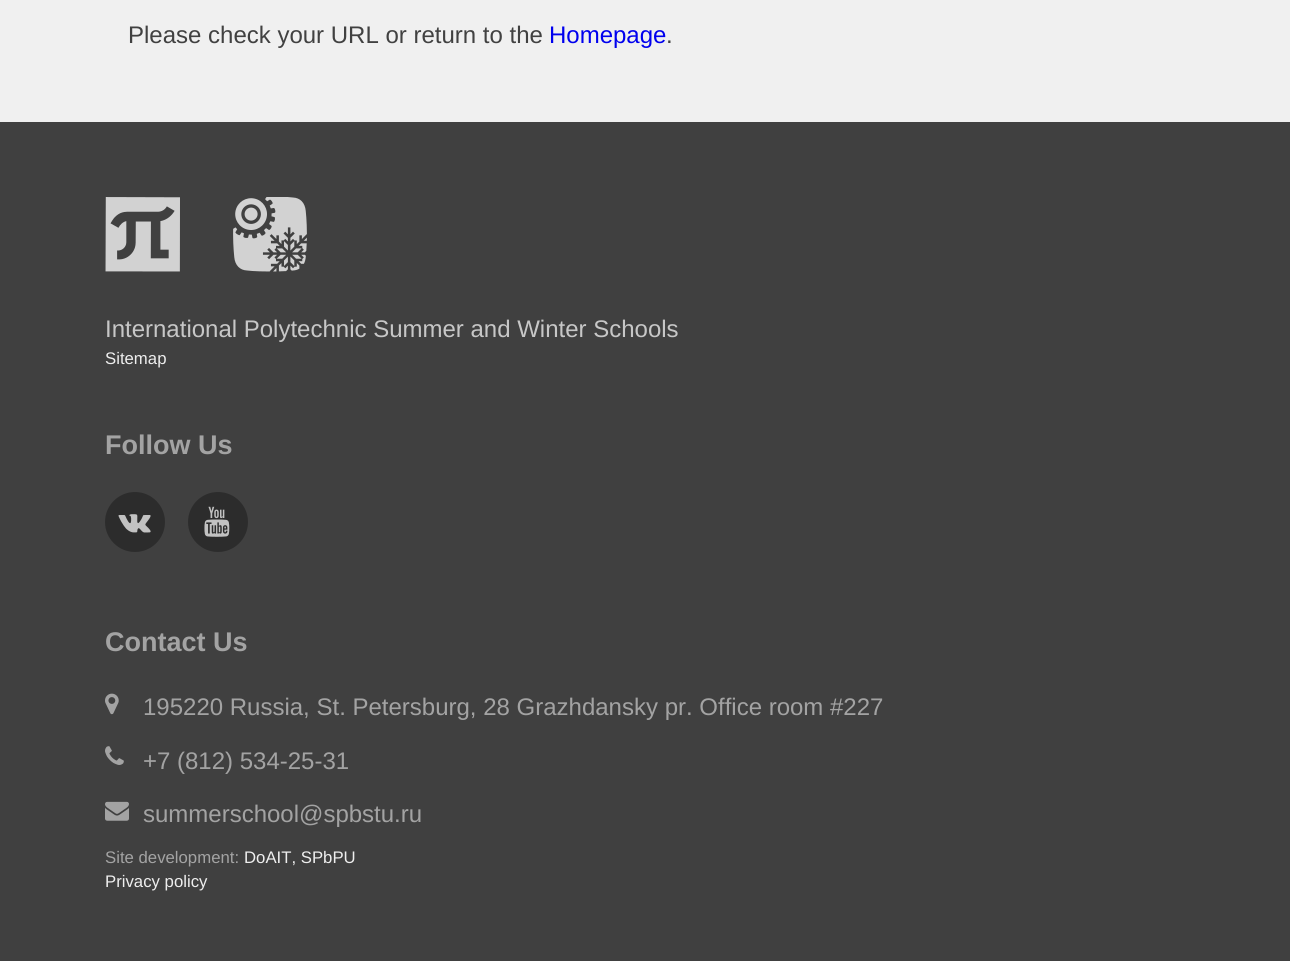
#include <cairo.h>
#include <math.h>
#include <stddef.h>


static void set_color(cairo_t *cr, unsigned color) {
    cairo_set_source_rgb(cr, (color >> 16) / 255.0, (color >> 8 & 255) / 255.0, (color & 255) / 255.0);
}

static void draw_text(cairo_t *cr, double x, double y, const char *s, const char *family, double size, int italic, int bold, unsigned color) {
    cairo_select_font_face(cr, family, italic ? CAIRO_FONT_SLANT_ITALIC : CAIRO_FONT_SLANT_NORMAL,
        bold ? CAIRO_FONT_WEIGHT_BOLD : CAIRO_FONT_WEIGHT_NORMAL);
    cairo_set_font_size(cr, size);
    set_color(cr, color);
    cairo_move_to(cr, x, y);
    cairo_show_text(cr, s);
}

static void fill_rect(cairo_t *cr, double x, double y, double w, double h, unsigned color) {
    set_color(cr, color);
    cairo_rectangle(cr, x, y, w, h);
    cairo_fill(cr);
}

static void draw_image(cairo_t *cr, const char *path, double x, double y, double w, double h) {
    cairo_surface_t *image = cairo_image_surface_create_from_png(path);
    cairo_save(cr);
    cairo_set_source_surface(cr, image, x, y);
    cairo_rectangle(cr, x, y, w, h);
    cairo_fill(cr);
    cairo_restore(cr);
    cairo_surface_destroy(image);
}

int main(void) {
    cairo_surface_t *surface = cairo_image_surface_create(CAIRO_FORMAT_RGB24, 1290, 961);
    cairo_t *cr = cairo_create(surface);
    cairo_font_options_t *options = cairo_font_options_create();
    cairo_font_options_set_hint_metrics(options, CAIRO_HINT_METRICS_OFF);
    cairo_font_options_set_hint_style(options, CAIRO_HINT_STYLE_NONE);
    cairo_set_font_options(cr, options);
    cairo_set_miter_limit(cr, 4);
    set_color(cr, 0xF0F0F0);
    cairo_paint(cr);
    draw_text(cr, 128, 43, "Please check your URL or return to the", "Liberation Sans", 24, 0, 0, 0x414141);
    draw_text(cr, 549, 43, "Homepage", "Liberation Sans", 24, 0, 0, 0x0000EE);
    draw_text(cr, 666, 43, ".", "Liberation Sans", 24, 0, 0, 0x414141);
    fill_rect(cr, 0, 122, 1290, 839, 0x404040);
    draw_image(cr, "assets/img1.png", 105, 197, 75, 75);
    draw_image(cr, "assets/img2.png", 233, 197, 74, 75);
    draw_text(cr, 105, 337, "International Polytechnic Summer and Winter Schools", "Liberation Sans", 24, 0, 0, 0xC7C7C7);
    draw_text(cr, 105, 364, "Sitemap", "Liberation Sans", 16.75, 0, 0, 0xEEEEEE);
    draw_text(cr, 105, 454, "Follow Us", "Liberation Sans", 27, 0, 1, 0xA3A3A3);
    set_color(cr, 0x2C2C2C);
    cairo_new_path(cr);
    cairo_arc(cr, 135, 522, 30, 0, 2 * M_PI);
    cairo_fill(cr);
    draw_image(cr, "assets/img3.png", 118, 514, 33, 19);
    cairo_arc(cr, 218, 522, 30, 0, 2 * M_PI);
    cairo_fill(cr);
    draw_image(cr, "assets/img4.png", 204, 506, 26, 31);
    draw_text(cr, 105, 651, "Contact Us", "Liberation Sans", 27, 0, 1, 0xA3A3A3);
    draw_image(cr, "assets/img5.png", 105, 693, 14, 22);
    draw_text(cr, 143, 715, "195220 Russia, St. Petersburg, 28 Grazhdansky pr. Office room #227", "Liberation Sans", 24, 0, 0, 0xA3A3A3);
    draw_image(cr, "assets/img6.png", 105, 746, 19, 19);
    draw_text(cr, 143, 769, "+7 (812) 534-25-31", "Liberation Sans", 24, 0, 0, 0xA3A3A3);
    draw_image(cr, "assets/img7.png", 105, 801, 24, 20);
    draw_text(cr, 143, 822, "summerschool@spbstu.ru", "Liberation Sans", 24, 0, 0, 0xA3A3A3);
    draw_text(cr, 105, 863, "Site development:", "Liberation Sans", 16.75, 0, 0, 0xA3A3A3);
    draw_text(cr, 244, 863, "DoAIT, SPbPU", "Liberation Sans", 16.75, 0, 0, 0xEEEEEE);
    draw_text(cr, 105, 887, "Privacy policy", "Liberation Sans", 16.75, 0, 0, 0xEEEEEE);
    cairo_surface_write_to_png(surface, "output.png");
    cairo_font_options_destroy(options);
    cairo_destroy(cr);
    cairo_surface_destroy(surface);
    return 0;
}
